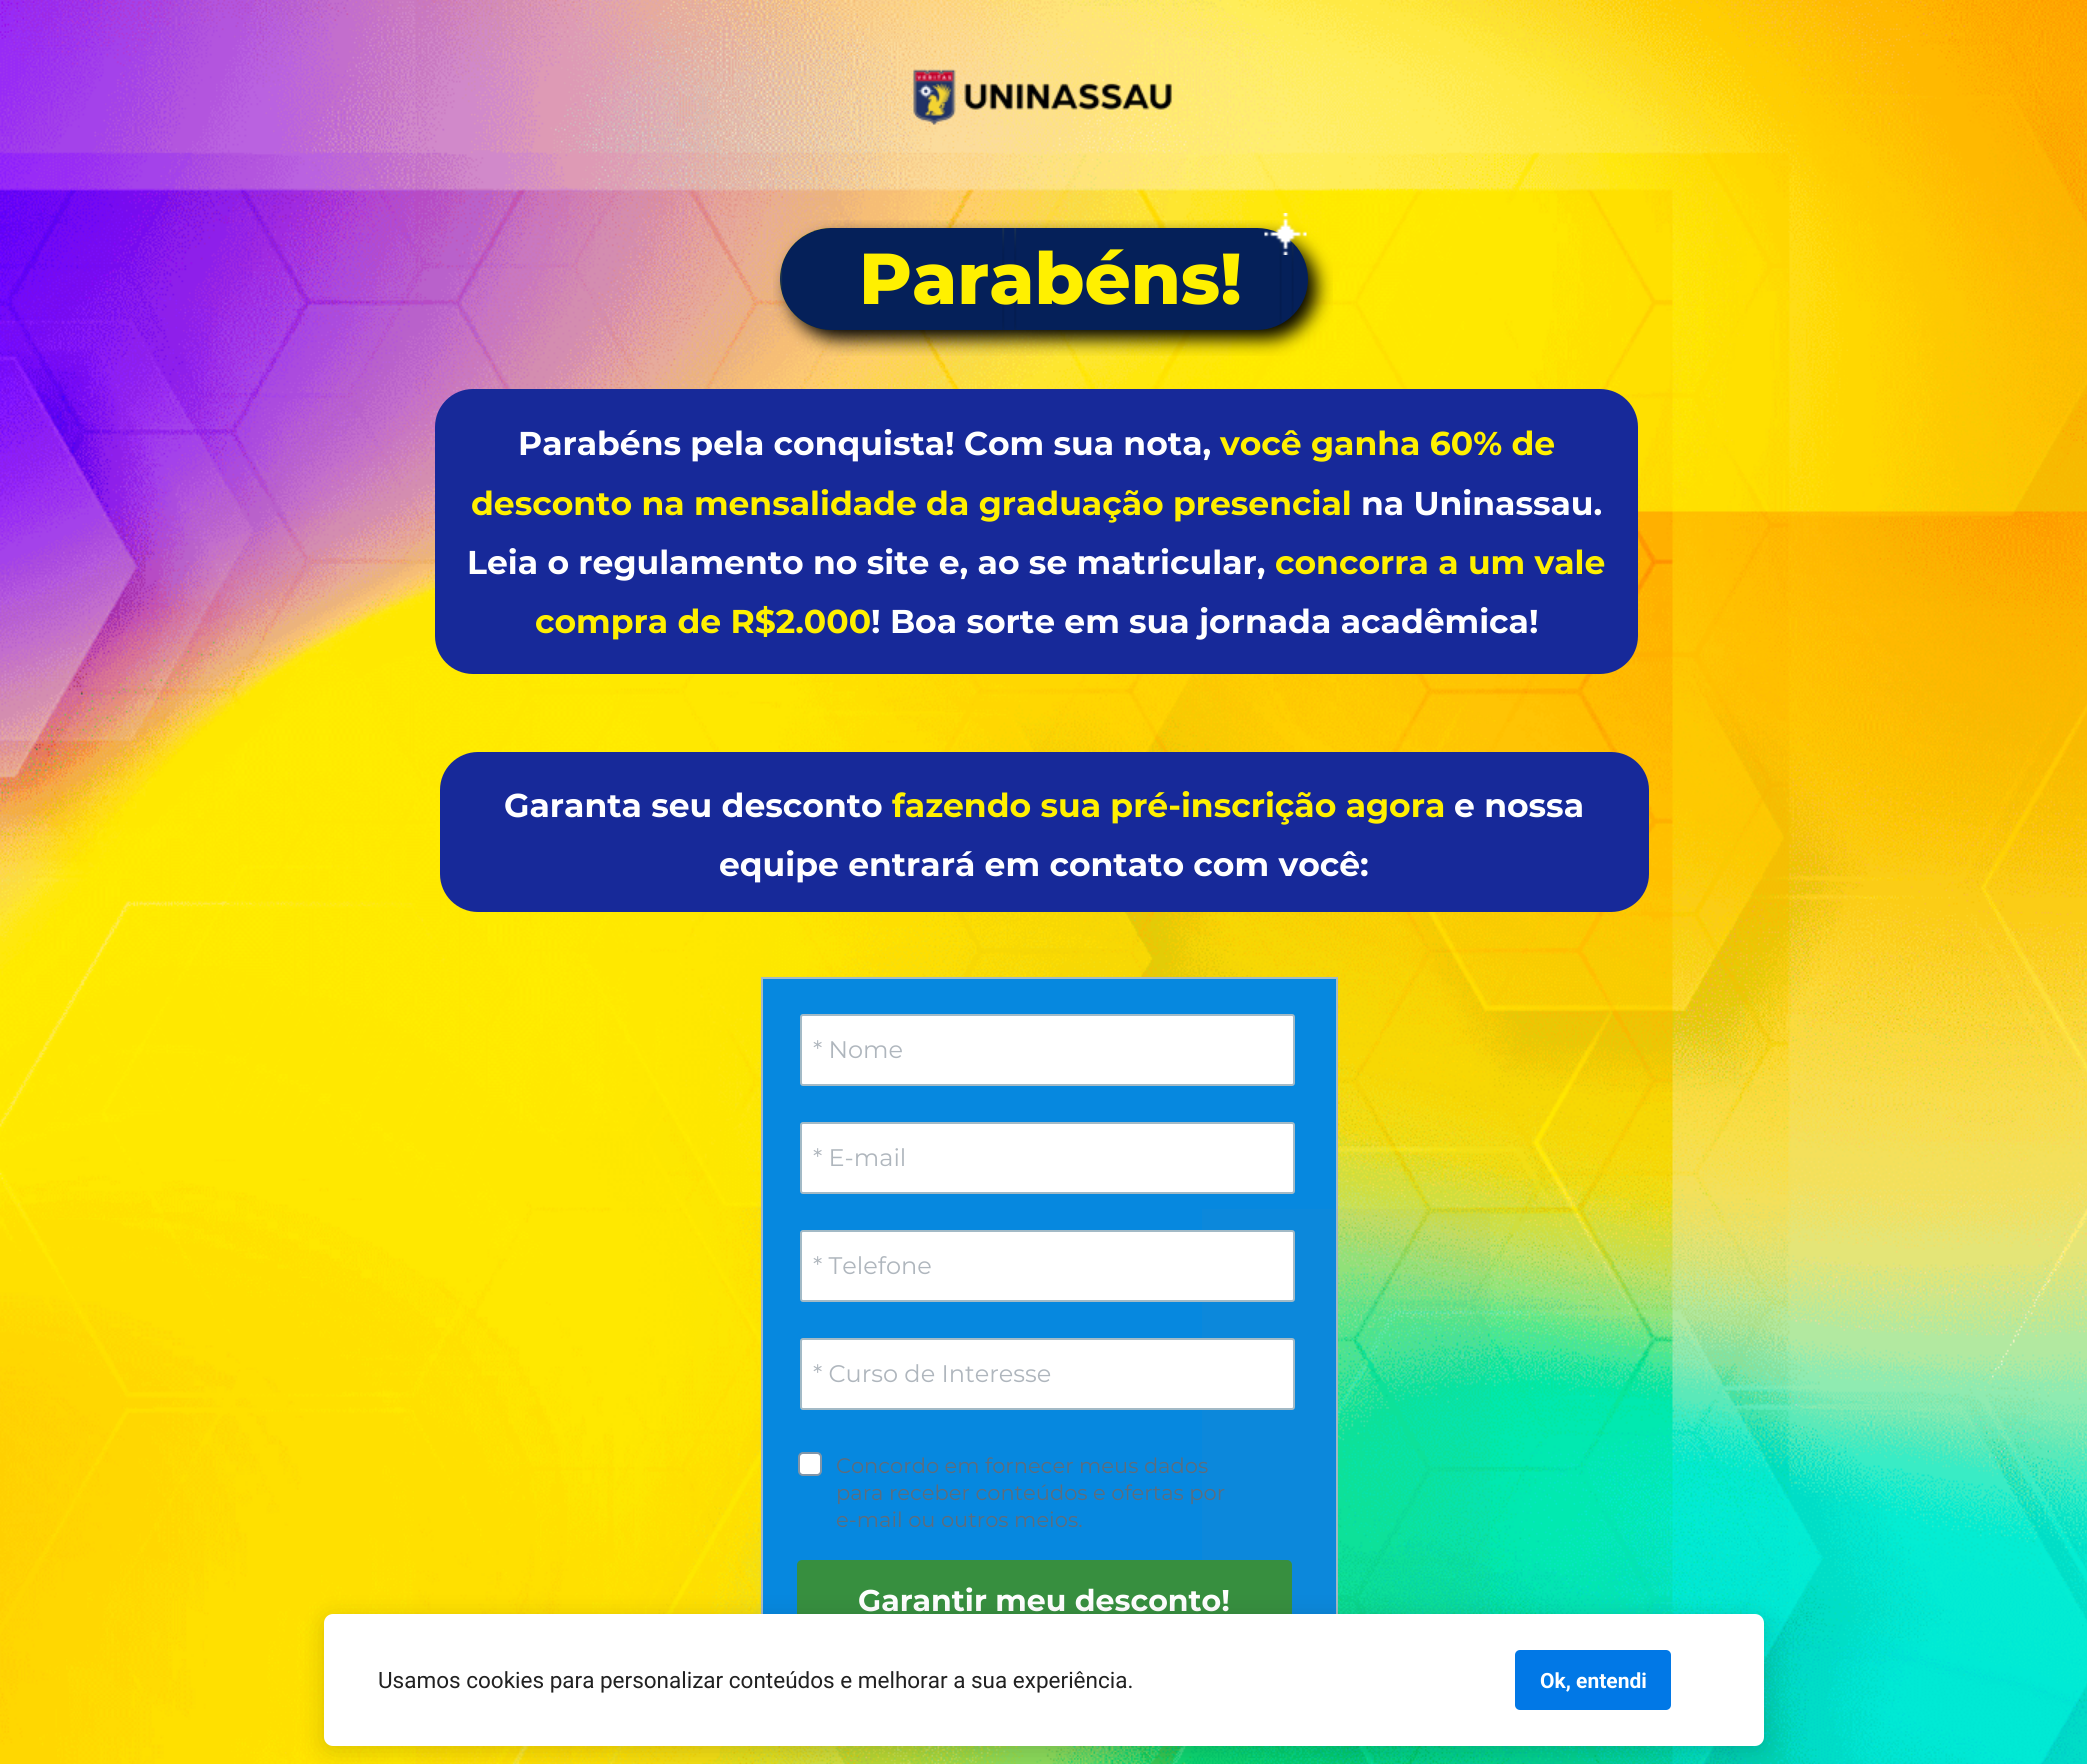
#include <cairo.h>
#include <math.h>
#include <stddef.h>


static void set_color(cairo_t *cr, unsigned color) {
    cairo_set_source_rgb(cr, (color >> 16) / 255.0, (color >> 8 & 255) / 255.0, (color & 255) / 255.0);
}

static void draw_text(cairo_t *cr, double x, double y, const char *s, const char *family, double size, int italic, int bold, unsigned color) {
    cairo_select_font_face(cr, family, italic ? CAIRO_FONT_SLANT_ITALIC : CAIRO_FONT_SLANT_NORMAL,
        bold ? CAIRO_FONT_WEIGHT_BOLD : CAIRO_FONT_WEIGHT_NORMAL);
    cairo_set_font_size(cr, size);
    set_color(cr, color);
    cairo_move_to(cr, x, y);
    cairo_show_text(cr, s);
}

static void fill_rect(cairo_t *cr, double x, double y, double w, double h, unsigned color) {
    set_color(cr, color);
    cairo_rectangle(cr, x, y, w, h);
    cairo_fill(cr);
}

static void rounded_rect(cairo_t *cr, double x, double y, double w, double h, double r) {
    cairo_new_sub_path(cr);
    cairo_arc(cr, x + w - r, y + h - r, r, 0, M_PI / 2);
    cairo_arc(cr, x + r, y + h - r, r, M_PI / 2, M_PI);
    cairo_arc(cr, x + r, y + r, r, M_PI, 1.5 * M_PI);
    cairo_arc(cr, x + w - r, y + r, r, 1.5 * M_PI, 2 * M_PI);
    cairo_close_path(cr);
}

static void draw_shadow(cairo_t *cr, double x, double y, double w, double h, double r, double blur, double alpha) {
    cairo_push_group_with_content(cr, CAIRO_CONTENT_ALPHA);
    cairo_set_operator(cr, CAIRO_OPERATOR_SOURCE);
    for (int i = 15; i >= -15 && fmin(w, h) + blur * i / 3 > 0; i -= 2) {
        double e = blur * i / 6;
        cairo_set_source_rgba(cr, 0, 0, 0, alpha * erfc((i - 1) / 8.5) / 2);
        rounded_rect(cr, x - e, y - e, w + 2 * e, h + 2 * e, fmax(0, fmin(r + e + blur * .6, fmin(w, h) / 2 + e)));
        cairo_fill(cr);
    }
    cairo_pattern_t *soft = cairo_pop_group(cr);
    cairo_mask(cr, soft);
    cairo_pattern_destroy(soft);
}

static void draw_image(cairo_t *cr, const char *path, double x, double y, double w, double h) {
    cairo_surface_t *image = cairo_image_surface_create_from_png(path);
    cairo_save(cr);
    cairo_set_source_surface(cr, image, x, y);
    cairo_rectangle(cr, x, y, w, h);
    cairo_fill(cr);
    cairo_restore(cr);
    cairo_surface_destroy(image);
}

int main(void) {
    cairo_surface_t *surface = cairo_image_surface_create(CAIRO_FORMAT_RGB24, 2087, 1764);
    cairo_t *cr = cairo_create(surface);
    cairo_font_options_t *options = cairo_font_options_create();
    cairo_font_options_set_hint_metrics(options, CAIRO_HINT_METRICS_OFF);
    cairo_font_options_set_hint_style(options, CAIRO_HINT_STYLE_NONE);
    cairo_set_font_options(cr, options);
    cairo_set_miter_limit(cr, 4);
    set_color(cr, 0xFFFFFF);
    cairo_paint(cr);
    draw_image(cr, "assets/img1.png", 0, 0, 2087, 1764);
    draw_image(cr, "assets/img2.png", 913, 69, 259, 56);
    set_color(cr, 0xFFF000);
    rounded_rect(cr, 780, 228, 528, 102, 51);
    cairo_fill(cr);
    draw_image(cr, "assets/img4.png", 773, 220, 560, 136);
    draw_image(cr, "assets/img3.png", 1264, 213, 43, 42);
    draw_text(cr, 859, 304, "Parabéns!", "Montserrat ExtraBold", 72, 0, 0, 0xFFF000);
    set_color(cr, 0x172999);
    rounded_rect(cr, 435, 389, 1203, 285, 38);
    cairo_fill(cr);
    draw_text(cr, 518, 455, "Parabéns pela conquista! Com sua nota,", "Montserrat", 33, 0, 1, 0xFFFFFF);
    draw_text(cr, 1220, 455, "você ganha 60% de", "Montserrat", 33, 0, 1, 0xFFF000);
    draw_text(cr, 471, 515, "desconto na mensalidade da graduação presencial", "Montserrat", 33, 0, 1, 0xFFF000);
    draw_text(cr, 1361, 515, "na Uninassau.", "Montserrat", 33, 0, 1, 0xFFFFFF);
    draw_text(cr, 467, 574, "Leia o regulamento no site e, ao se matricular,", "Montserrat", 33, 0, 1, 0xFFFFFF);
    draw_text(cr, 1275, 574, "concorra a um vale", "Montserrat", 33, 0, 1, 0xFFF000);
    draw_text(cr, 535, 633, "compra de R$2.000", "Montserrat", 33, 0, 1, 0xFFF000);
    draw_text(cr, 871, 633, "! Boa sorte em sua jornada acadêmica!", "Montserrat", 33, 0, 1, 0xFFFFFF);
    set_color(cr, 0x172999);
    rounded_rect(cr, 440, 752, 1209, 160, 38);
    cairo_fill(cr);
    draw_text(cr, 504, 817, "Garanta seu desconto", "Montserrat", 33, 0, 1, 0xFFFFFF);
    draw_text(cr, 892, 817, "fazendo sua pré-inscrição agora", "Montserrat", 33, 0, 1, 0xFFF000);
    draw_text(cr, 1454, 817, "e nossa", "Montserrat", 33, 0, 1, 0xFFFFFF);
    draw_text(cr, 719, 876, "equipe entrará em contato com você:", "Montserrat", 33, 0, 1, 0xFFFFFF);
    fill_rect(cr, 763, 979, 573, 635, 0x0688DF);
    cairo_rectangle(cr, 762, 978, 575, 686);
    set_color(cr, 0xA3BAC6);
    cairo_stroke(cr);
    set_color(cr, 0xFFFFFF);
    rounded_rect(cr, 801, 1015, 493, 70, 2);
    cairo_fill_preserve(cr);
    set_color(cr, 0xA3BAC6);
    cairo_stroke(cr);
    draw_text(cr, 813, 1058, "* Nome", "Montserrat", 24, 0, 0, 0xAFB6BD);
    set_color(cr, 0xFFFFFF);
    rounded_rect(cr, 801, 1123, 493, 70, 2);
    cairo_fill_preserve(cr);
    set_color(cr, 0xA3BAC6);
    cairo_stroke(cr);
    draw_text(cr, 813, 1166, "* E-mail", "Montserrat", 24, 0, 0, 0xAFB6BD);
    cairo_set_source_rgba(cr, 0.502, 0.502, 0.502, 0.05);
    cairo_rectangle(cr, 1202, 1209, 288, 405);
    cairo_fill(cr);
    set_color(cr, 0xFFFFFF);
    rounded_rect(cr, 801, 1231, 493, 70, 2);
    cairo_fill_preserve(cr);
    set_color(cr, 0xA3BAC6);
    cairo_stroke(cr);
    draw_text(cr, 813, 1274, "* Telefone", "Montserrat", 24, 0, 0, 0xAFB6BD);
    set_color(cr, 0xFFFFFF);
    rounded_rect(cr, 801, 1339, 493, 70, 2);
    cairo_fill_preserve(cr);
    set_color(cr, 0xA3BAC6);
    cairo_stroke(cr);
    draw_text(cr, 813, 1382, "* Curso de Interesse", "Montserrat", 24, 0, 0, 0xAFB6BD);
    set_color(cr, 0xFFFFFF);
    rounded_rect(cr, 799, 1453, 22, 22, 4);
    cairo_fill_preserve(cr);
    set_color(cr, 0x8195A8);
    cairo_stroke(cr);
    draw_text(cr, 836, 1473, "Concordo em fornecer meus dados", "Montserrat", 21, 0, 0, 0x5E6C7B);
    draw_text(cr, 836, 1500, "para receber conteúdos e ofertas por", "Montserrat", 21, 0, 0, 0x5E6C7B);
    draw_text(cr, 836, 1527, "e-mail ou outros meios.", "Montserrat", 21, 0, 0, 0x5E6C7B);
    set_color(cr, 0x378F3F);
    rounded_rect(cr, 797, 1560, 495, 81, 5);
    cairo_fill(cr);
    draw_text(cr, 858, 1611, "Garantir meu desconto!", "Montserrat", 30, 0, 1, 0xFFFFFF);
    set_color(cr, 0x000000);
    draw_shadow(cr, 324, 1619, 1440, 132, 9, 13, 0.15);
    set_color(cr, 0xFFFFFF);
    rounded_rect(cr, 324, 1614, 1440, 132, 9);
    cairo_fill(cr);
    draw_text(cr, 378, 1688, "Usamos cookies para personalizar conteúdos e melhorar a sua experiência.", "Roboto", 22.5, 0, 0, 0x212121);
    set_color(cr, 0x0178E6);
    rounded_rect(cr, 1515, 1650, 156, 60, 5);
    cairo_fill(cr);
    draw_text(cr, 1540, 1688, "Ok, entendi", "Roboto", 21, 0, 1, 0xFFFFFF);
    cairo_surface_write_to_png(surface, "output.png");
    cairo_font_options_destroy(options);
    cairo_destroy(cr);
    cairo_surface_destroy(surface);
    return 0;
}
